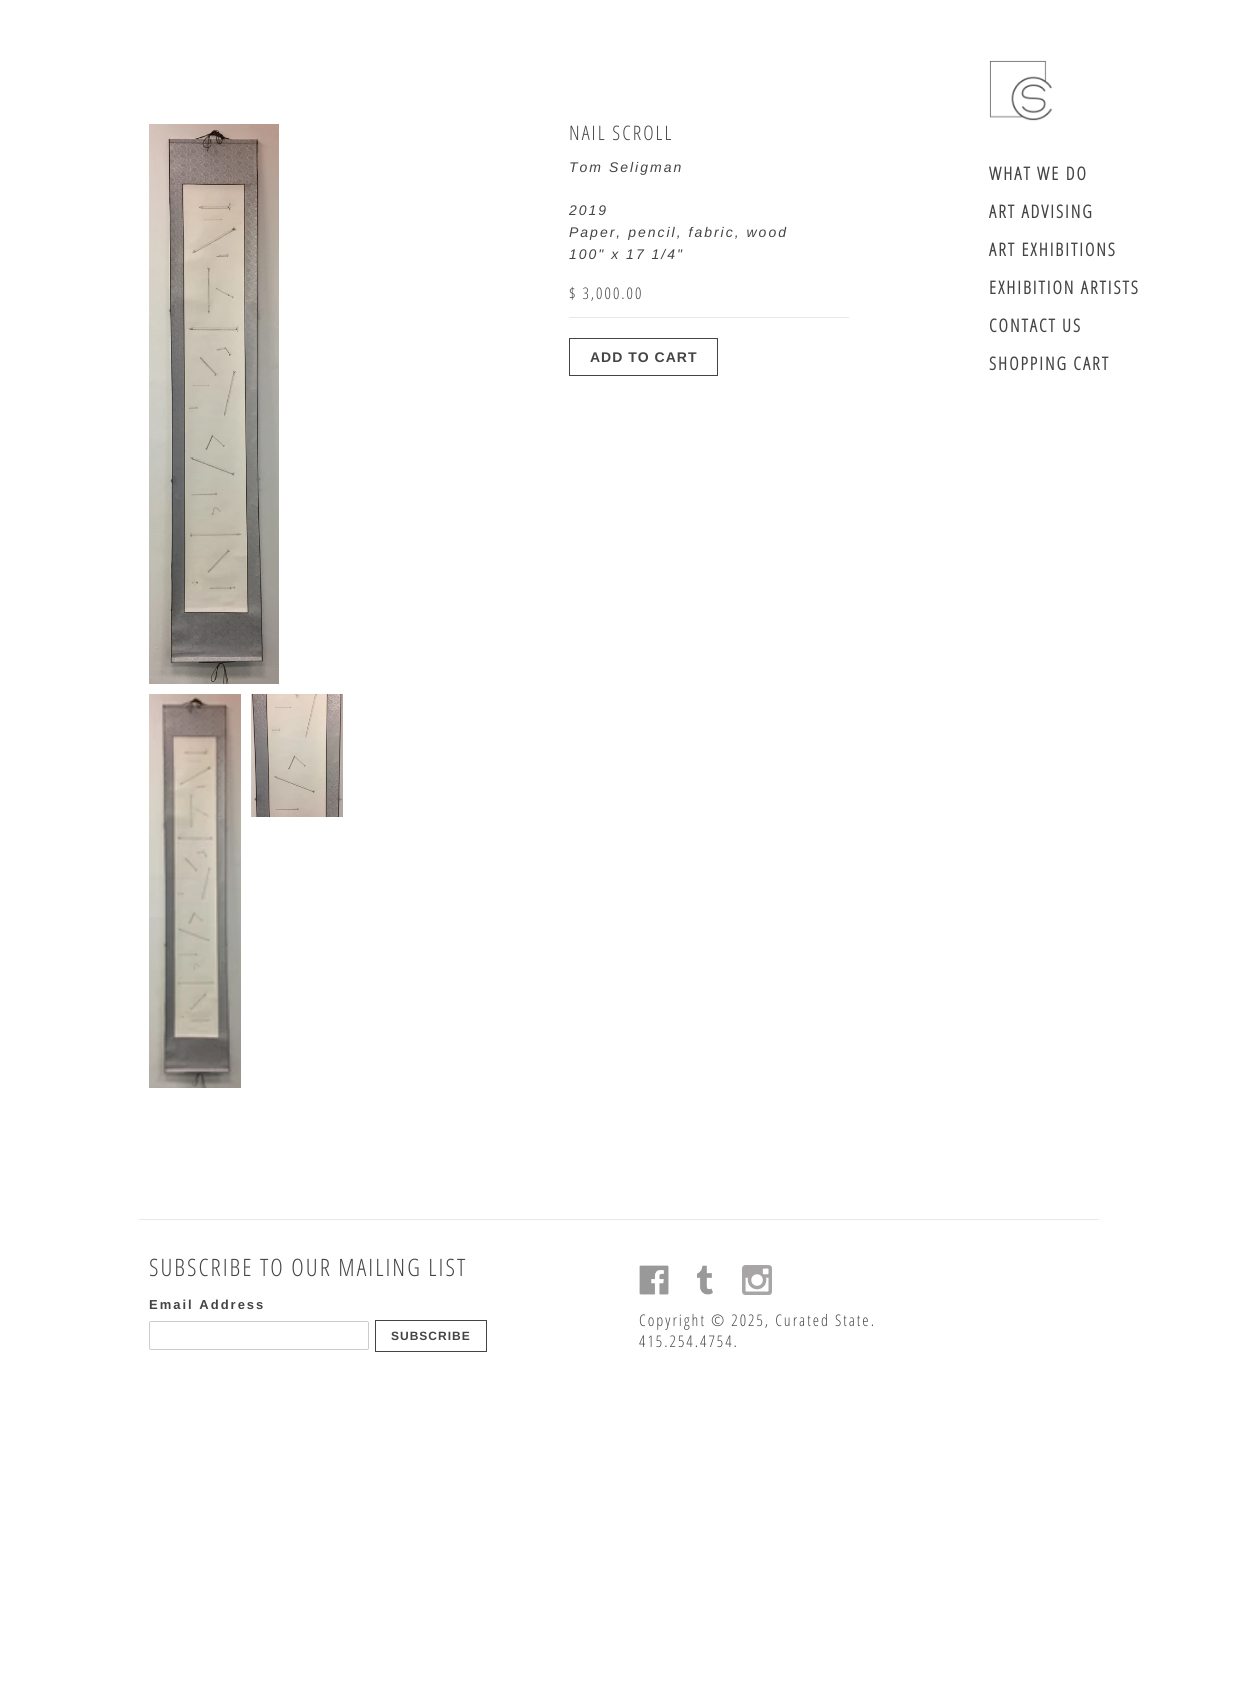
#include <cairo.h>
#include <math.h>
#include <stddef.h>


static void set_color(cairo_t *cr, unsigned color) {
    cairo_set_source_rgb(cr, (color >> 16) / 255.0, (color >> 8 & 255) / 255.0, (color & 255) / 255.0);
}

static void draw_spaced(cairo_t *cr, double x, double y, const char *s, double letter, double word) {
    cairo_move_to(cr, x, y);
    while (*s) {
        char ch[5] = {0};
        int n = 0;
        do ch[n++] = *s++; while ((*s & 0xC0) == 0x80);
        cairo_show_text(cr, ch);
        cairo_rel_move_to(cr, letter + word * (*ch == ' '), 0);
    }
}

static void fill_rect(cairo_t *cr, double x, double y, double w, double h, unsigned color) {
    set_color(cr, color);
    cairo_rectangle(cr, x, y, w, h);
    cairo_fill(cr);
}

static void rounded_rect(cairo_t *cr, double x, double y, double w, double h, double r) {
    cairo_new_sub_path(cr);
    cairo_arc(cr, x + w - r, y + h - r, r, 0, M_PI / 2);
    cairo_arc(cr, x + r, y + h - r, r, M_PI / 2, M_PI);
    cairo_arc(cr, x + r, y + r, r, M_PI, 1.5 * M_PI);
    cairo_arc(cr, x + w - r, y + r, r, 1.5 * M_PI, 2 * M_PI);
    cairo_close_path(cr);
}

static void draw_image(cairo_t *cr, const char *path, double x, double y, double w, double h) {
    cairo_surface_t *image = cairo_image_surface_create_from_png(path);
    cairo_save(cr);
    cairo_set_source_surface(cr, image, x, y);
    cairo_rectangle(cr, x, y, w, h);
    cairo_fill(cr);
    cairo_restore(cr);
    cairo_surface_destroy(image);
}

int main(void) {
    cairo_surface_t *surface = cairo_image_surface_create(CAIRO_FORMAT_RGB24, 1237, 1705);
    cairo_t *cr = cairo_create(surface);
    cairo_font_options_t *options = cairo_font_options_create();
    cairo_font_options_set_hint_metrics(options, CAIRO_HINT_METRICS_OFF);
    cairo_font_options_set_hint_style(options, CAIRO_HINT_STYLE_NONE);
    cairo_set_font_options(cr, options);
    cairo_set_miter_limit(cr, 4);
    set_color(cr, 0xFFFFFF);
    cairo_paint(cr);
    draw_image(cr, "assets/img1.png", 989, 60, 64, 61);
    draw_image(cr, "assets/img2.png", 149, 124, 130, 560);
    draw_image(cr, "assets/img3.png", 149, 694, 92, 394);
    draw_image(cr, "assets/img4.png", 251, 694, 92, 123);
    cairo_select_font_face(cr, "Open Sans Condensed Light", CAIRO_FONT_SLANT_NORMAL, CAIRO_FONT_WEIGHT_NORMAL);
    cairo_set_font_size(cr, 20);
    set_color(cr, 0x444444);
    draw_spaced(cr, 569, 140, "NAIL SCROLL", 2, 0);
    cairo_select_font_face(cr, "Liberation Sans", CAIRO_FONT_SLANT_ITALIC, CAIRO_FONT_WEIGHT_NORMAL);
    cairo_set_font_size(cr, 14);
    draw_spaced(cr, 569, 172, "Tom Seligman", 2, 0);
    draw_spaced(cr, 569, 215, "2019", 2, 0);
    draw_spaced(cr, 569, 237, "Paper, pencil, fabric, wood", 2, 0);
    draw_spaced(cr, 569, 259, "100\" x 17 1/4\"", 2, 0);
    cairo_select_font_face(cr, "Open Sans Condensed Light", CAIRO_FONT_SLANT_NORMAL, CAIRO_FONT_WEIGHT_NORMAL);
    cairo_set_font_size(cr, 16);
    draw_spaced(cr, 569, 299, "$ 3,000.00", 2, 0);
    fill_rect(cr, 569, 317, 280, 1, 0xE8E8E8);
    cairo_rectangle(cr, 569.5, 338.5, 148, 37);
    set_color(cr, 0x444444);
    cairo_set_line_width(cr, 1);
    cairo_stroke(cr);
    cairo_select_font_face(cr, "Liberation Sans", CAIRO_FONT_SLANT_NORMAL, CAIRO_FONT_WEIGHT_BOLD);
    cairo_set_font_size(cr, 14);
    draw_spaced(cr, 590, 362, "ADD TO CART", 1, 0);
    cairo_select_font_face(cr, "Open Sans Condensed", CAIRO_FONT_SLANT_NORMAL, CAIRO_FONT_WEIGHT_BOLD);
    cairo_set_font_size(cr, 18);
    draw_spaced(cr, 989, 180, "WHAT WE DO", 2, 0);
    draw_spaced(cr, 989, 218, "ART ADVISING", 2, 0);
    draw_spaced(cr, 989, 256, "ART EXHIBITIONS", 2, 0);
    draw_spaced(cr, 989, 294, "EXHIBITION ARTISTS", 2, 0);
    draw_spaced(cr, 989, 332, "CONTACT US", 2, 0);
    draw_spaced(cr, 989, 370, "SHOPPING CART", 2, 0);
    fill_rect(cr, 139, 1219, 960, 1, 0xE8E8E8);
    cairo_select_font_face(cr, "Open Sans Condensed Light", CAIRO_FONT_SLANT_NORMAL, CAIRO_FONT_WEIGHT_NORMAL);
    cairo_set_font_size(cr, 24);
    set_color(cr, 0x444444);
    draw_spaced(cr, 149, 1276, "SUBSCRIBE TO OUR MAILING LIST", 2, 0);
    cairo_select_font_face(cr, "Liberation Sans", CAIRO_FONT_SLANT_NORMAL, CAIRO_FONT_WEIGHT_BOLD);
    cairo_set_font_size(cr, 13);
    draw_spaced(cr, 149, 1309, "Email Address", 2, 0);
    rounded_rect(cr, 149.5, 1321.5, 219, 28, 1.5);
    set_color(cr, 0xCCCCCC);
    cairo_stroke(cr);
    cairo_rectangle(cr, 375.5, 1320.5, 111, 31);
    set_color(cr, 0x444444);
    cairo_stroke(cr);
    cairo_set_font_size(cr, 12);
    draw_spaced(cr, 391, 1340, "SUBSCRIBE", 1, 0);
    draw_image(cr, "assets/img5.png", 639, 1265, 30, 30);
    draw_image(cr, "assets/img6.png", 697, 1265, 16, 30);
    draw_image(cr, "assets/img7.png", 742, 1265, 30, 30);
    cairo_select_font_face(cr, "Open Sans Condensed Light", CAIRO_FONT_SLANT_NORMAL, CAIRO_FONT_WEIGHT_NORMAL);
    cairo_set_font_size(cr, 16);
    draw_spaced(cr, 639, 1326, "Copyright © 2025, Curated State.", 2, 0);
    draw_spaced(cr, 639, 1347, "415.254.4754.", 2, 0);
    cairo_surface_write_to_png(surface, "output.png");
    cairo_font_options_destroy(options);
    cairo_destroy(cr);
    cairo_surface_destroy(surface);
    return 0;
}
